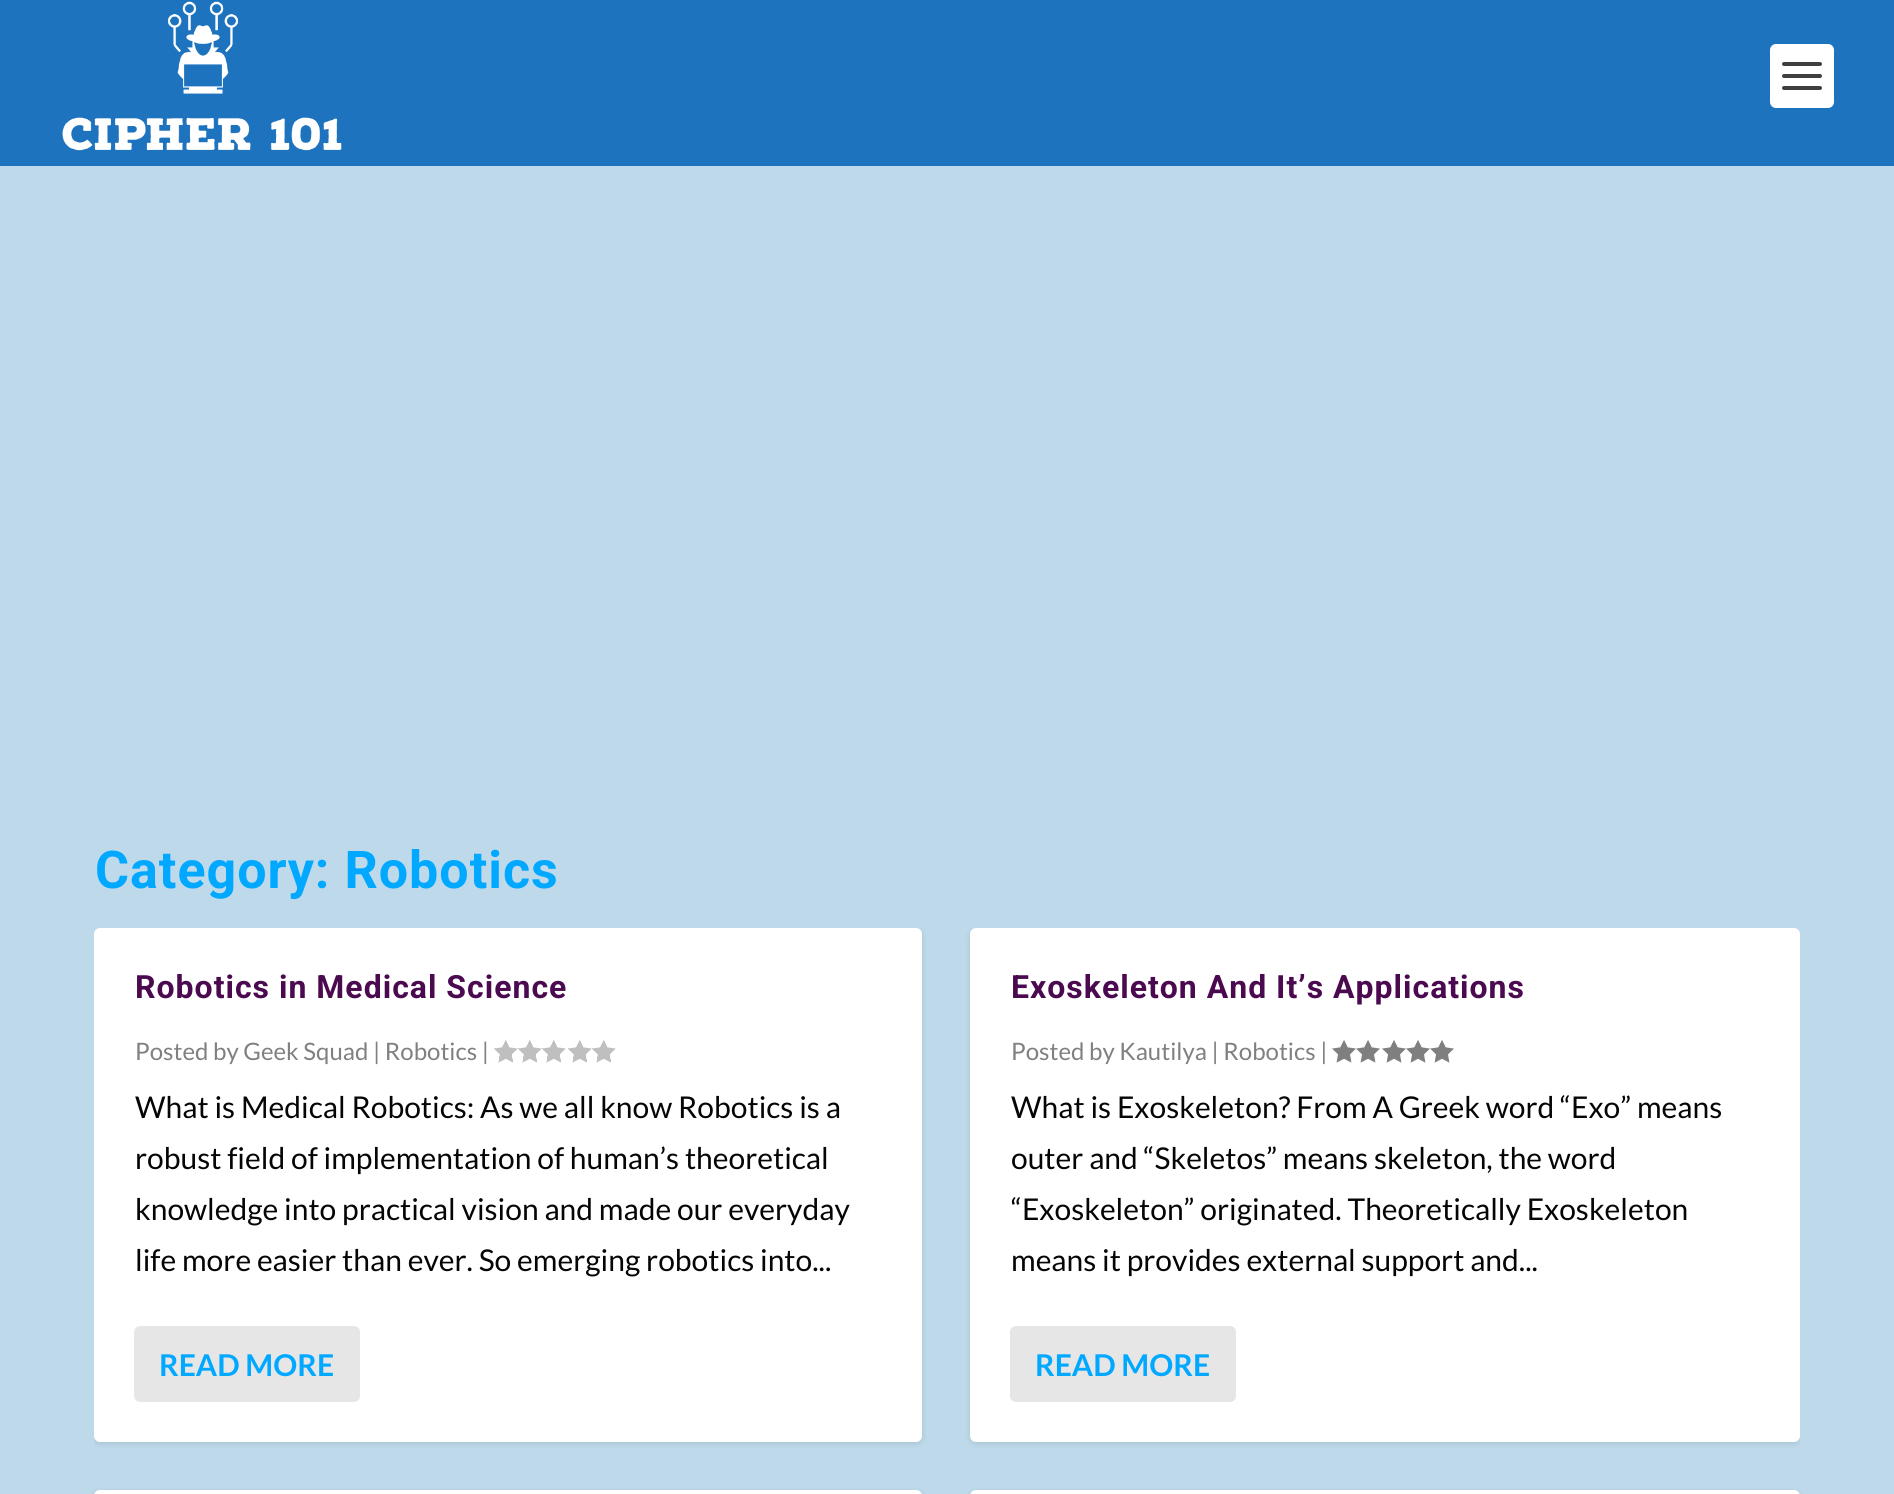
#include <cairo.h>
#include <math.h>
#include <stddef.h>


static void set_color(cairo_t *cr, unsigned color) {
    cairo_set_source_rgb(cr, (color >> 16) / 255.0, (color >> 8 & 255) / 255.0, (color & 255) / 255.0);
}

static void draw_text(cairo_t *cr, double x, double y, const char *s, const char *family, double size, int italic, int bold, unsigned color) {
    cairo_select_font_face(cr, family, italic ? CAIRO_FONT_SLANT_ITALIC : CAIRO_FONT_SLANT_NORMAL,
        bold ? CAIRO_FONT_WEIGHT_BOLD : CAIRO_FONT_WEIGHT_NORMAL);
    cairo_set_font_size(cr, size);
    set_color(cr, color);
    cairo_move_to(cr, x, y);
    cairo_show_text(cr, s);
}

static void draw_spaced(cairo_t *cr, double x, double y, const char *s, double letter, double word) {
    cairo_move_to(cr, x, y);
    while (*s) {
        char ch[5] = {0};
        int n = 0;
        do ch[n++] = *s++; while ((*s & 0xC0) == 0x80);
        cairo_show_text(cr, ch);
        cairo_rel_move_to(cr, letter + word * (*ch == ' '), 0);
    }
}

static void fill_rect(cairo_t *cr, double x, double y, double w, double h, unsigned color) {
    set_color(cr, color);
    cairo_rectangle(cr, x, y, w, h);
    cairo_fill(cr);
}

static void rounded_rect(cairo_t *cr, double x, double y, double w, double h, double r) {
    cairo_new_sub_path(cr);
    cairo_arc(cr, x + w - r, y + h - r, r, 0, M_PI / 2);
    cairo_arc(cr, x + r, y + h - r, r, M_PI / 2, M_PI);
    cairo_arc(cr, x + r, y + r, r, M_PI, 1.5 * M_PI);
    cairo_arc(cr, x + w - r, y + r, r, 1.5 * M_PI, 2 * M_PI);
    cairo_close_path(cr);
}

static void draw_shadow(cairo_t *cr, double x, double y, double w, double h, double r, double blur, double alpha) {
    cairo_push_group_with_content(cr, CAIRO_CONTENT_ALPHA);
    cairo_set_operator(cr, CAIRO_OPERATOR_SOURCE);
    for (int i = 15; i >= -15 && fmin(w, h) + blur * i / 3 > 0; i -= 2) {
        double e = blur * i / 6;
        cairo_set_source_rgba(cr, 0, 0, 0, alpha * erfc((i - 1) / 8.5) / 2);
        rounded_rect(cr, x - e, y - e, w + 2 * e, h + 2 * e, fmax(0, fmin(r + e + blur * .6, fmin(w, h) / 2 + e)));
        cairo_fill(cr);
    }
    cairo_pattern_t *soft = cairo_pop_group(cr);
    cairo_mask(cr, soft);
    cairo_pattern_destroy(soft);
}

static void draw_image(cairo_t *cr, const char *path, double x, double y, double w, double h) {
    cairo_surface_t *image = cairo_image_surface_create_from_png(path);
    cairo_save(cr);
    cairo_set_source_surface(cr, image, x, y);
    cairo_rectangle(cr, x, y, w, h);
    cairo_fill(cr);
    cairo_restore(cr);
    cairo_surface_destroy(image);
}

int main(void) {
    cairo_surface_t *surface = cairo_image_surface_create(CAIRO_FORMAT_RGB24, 1894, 1494);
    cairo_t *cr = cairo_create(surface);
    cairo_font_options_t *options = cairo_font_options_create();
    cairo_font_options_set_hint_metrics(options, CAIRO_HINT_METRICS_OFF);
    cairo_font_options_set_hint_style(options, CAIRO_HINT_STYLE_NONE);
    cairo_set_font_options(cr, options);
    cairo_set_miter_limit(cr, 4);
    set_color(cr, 0xBDD9EA);
    cairo_paint(cr);
    fill_rect(cr, 0, 0, 1894, 166, 0x1E73BE);
    draw_image(cr, "assets/img1.png", 62, 1, 280, 150);
    set_color(cr, 0xFFFFFF);
    rounded_rect(cr, 1770, 44, 64, 64, 6);
    cairo_fill(cr);
    set_color(cr, 0x404040);
    rounded_rect(cr, 1782, 62, 40, 4, 2);
    cairo_fill(cr);
    rounded_rect(cr, 1782, 74, 40, 4, 2);
    cairo_fill(cr);
    rounded_rect(cr, 1782, 86, 40, 4, 2);
    cairo_fill(cr);
    cairo_select_font_face(cr, "Roboto", CAIRO_FONT_SLANT_NORMAL, CAIRO_FONT_WEIGHT_BOLD);
    cairo_set_font_size(cr, 52);
    set_color(cr, 0x00A8FF);
    draw_spaced(cr, 95, 888, "Category: Robotics", 1, 0);
    cairo_save(cr);
    rounded_rect(cr, 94, 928, 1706, 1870, 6);
    cairo_clip(cr);
    set_color(cr, 0x000000);
    draw_shadow(cr, 94, 930, 828, 514, 6, 3, 0.1);
    cairo_restore(cr);
    set_color(cr, 0xFFFFFF);
    rounded_rect(cr, 94, 928, 828, 514, 6);
    cairo_fill(cr);
    cairo_set_font_size(cr, 32);
    set_color(cr, 0x4B094F);
    draw_spaced(cr, 135, 998, "Robotics in Medical Science", 1, 0);
    draw_text(cr, 135, 1060, "Posted by Geek Squad | Robotics |", "Lato", 24, 0, 0, 0x808080);
    draw_image(cr, "assets/img2.png", 494, 1040, 24, 23);
    draw_image(cr, "assets/img2.png", 518, 1040, 24, 23);
    draw_image(cr, "assets/img2.png", 542, 1040, 24, 23);
    draw_image(cr, "assets/img2.png", 568, 1040, 24, 23);
    draw_image(cr, "assets/img2.png", 592, 1040, 24, 23);
    draw_text(cr, 135, 1118, "What is Medical Robotics: As we all know Robotics is a", "Lato", 30, 0, 0, 0x050505);
    draw_text(cr, 135, 1169, "robust field of implementation of human’s theoretical", "Lato", 30, 0, 0, 0x050505);
    draw_text(cr, 135, 1220, "knowledge into practical vision and made our everyday", "Lato", 30, 0, 0, 0x050505);
    draw_text(cr, 135, 1271, "life more easier than ever. So emerging robotics into...", "Lato", 30, 0, 0, 0x050505);
    set_color(cr, 0xE6E6E6);
    rounded_rect(cr, 134, 1326, 226, 76, 6);
    cairo_fill(cr);
    draw_text(cr, 159, 1376, "READ MORE", "Lato", 30, 0, 1, 0x00A8FF);
    set_color(cr, 0x000000);
    draw_shadow(cr, 94, 1492, 828, 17, 6, 3, 0.1);
    set_color(cr, 0xFFFFFF);
    rounded_rect(cr, 94, 1490, 828, 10, 6);
    cairo_fill(cr);
    cairo_save(cr);
    rounded_rect(cr, 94, 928, 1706, 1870, 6);
    cairo_clip(cr);
    set_color(cr, 0x000000);
    draw_shadow(cr, 970, 930, 830, 514, 6, 3, 0.1);
    cairo_restore(cr);
    rounded_rect(cr, 970, 928, 830, 514, 6);
    cairo_fill(cr);
    cairo_select_font_face(cr, "Roboto", CAIRO_FONT_SLANT_NORMAL, CAIRO_FONT_WEIGHT_BOLD);
    cairo_set_font_size(cr, 32);
    set_color(cr, 0x4B094F);
    draw_spaced(cr, 1011, 998, "Exoskeleton And It’s Applications", 1, 0);
    draw_text(cr, 1011, 1060, "Posted by Kautilya | Robotics |", "Lato", 24, 0, 0, 0x808080);
    draw_image(cr, "assets/img3.png", 1332, 1040, 24, 23);
    draw_image(cr, "assets/img3.png", 1356, 1040, 24, 23);
    draw_image(cr, "assets/img3.png", 1382, 1040, 24, 23);
    draw_image(cr, "assets/img3.png", 1406, 1040, 24, 23);
    draw_image(cr, "assets/img3.png", 1430, 1040, 24, 23);
    draw_text(cr, 1011, 1118, "What is Exoskeleton? From A Greek word “Exo” means", "Lato", 30, 0, 0, 0x050505);
    draw_text(cr, 1011, 1169, "outer and “Skeletos” means skeleton, the word", "Lato", 30, 0, 0, 0x050505);
    draw_text(cr, 1011, 1220, "“Exoskeleton” originated. Theoretically Exoskeleton", "Lato", 30, 0, 0, 0x050505);
    draw_text(cr, 1011, 1271, "means it provides external support and...", "Lato", 30, 0, 0, 0x050505);
    set_color(cr, 0xE6E6E6);
    rounded_rect(cr, 1010, 1326, 226, 76, 6);
    cairo_fill(cr);
    draw_text(cr, 1035, 1376, "READ MORE", "Lato", 30, 0, 1, 0x00A8FF);
    set_color(cr, 0x000000);
    draw_shadow(cr, 970, 1492, 830, 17, 6, 3, 0.1);
    set_color(cr, 0xFFFFFF);
    rounded_rect(cr, 970, 1490, 830, 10, 6);
    cairo_fill(cr);
    cairo_surface_write_to_png(surface, "output.png");
    cairo_font_options_destroy(options);
    cairo_destroy(cr);
    cairo_surface_destroy(surface);
    return 0;
}
